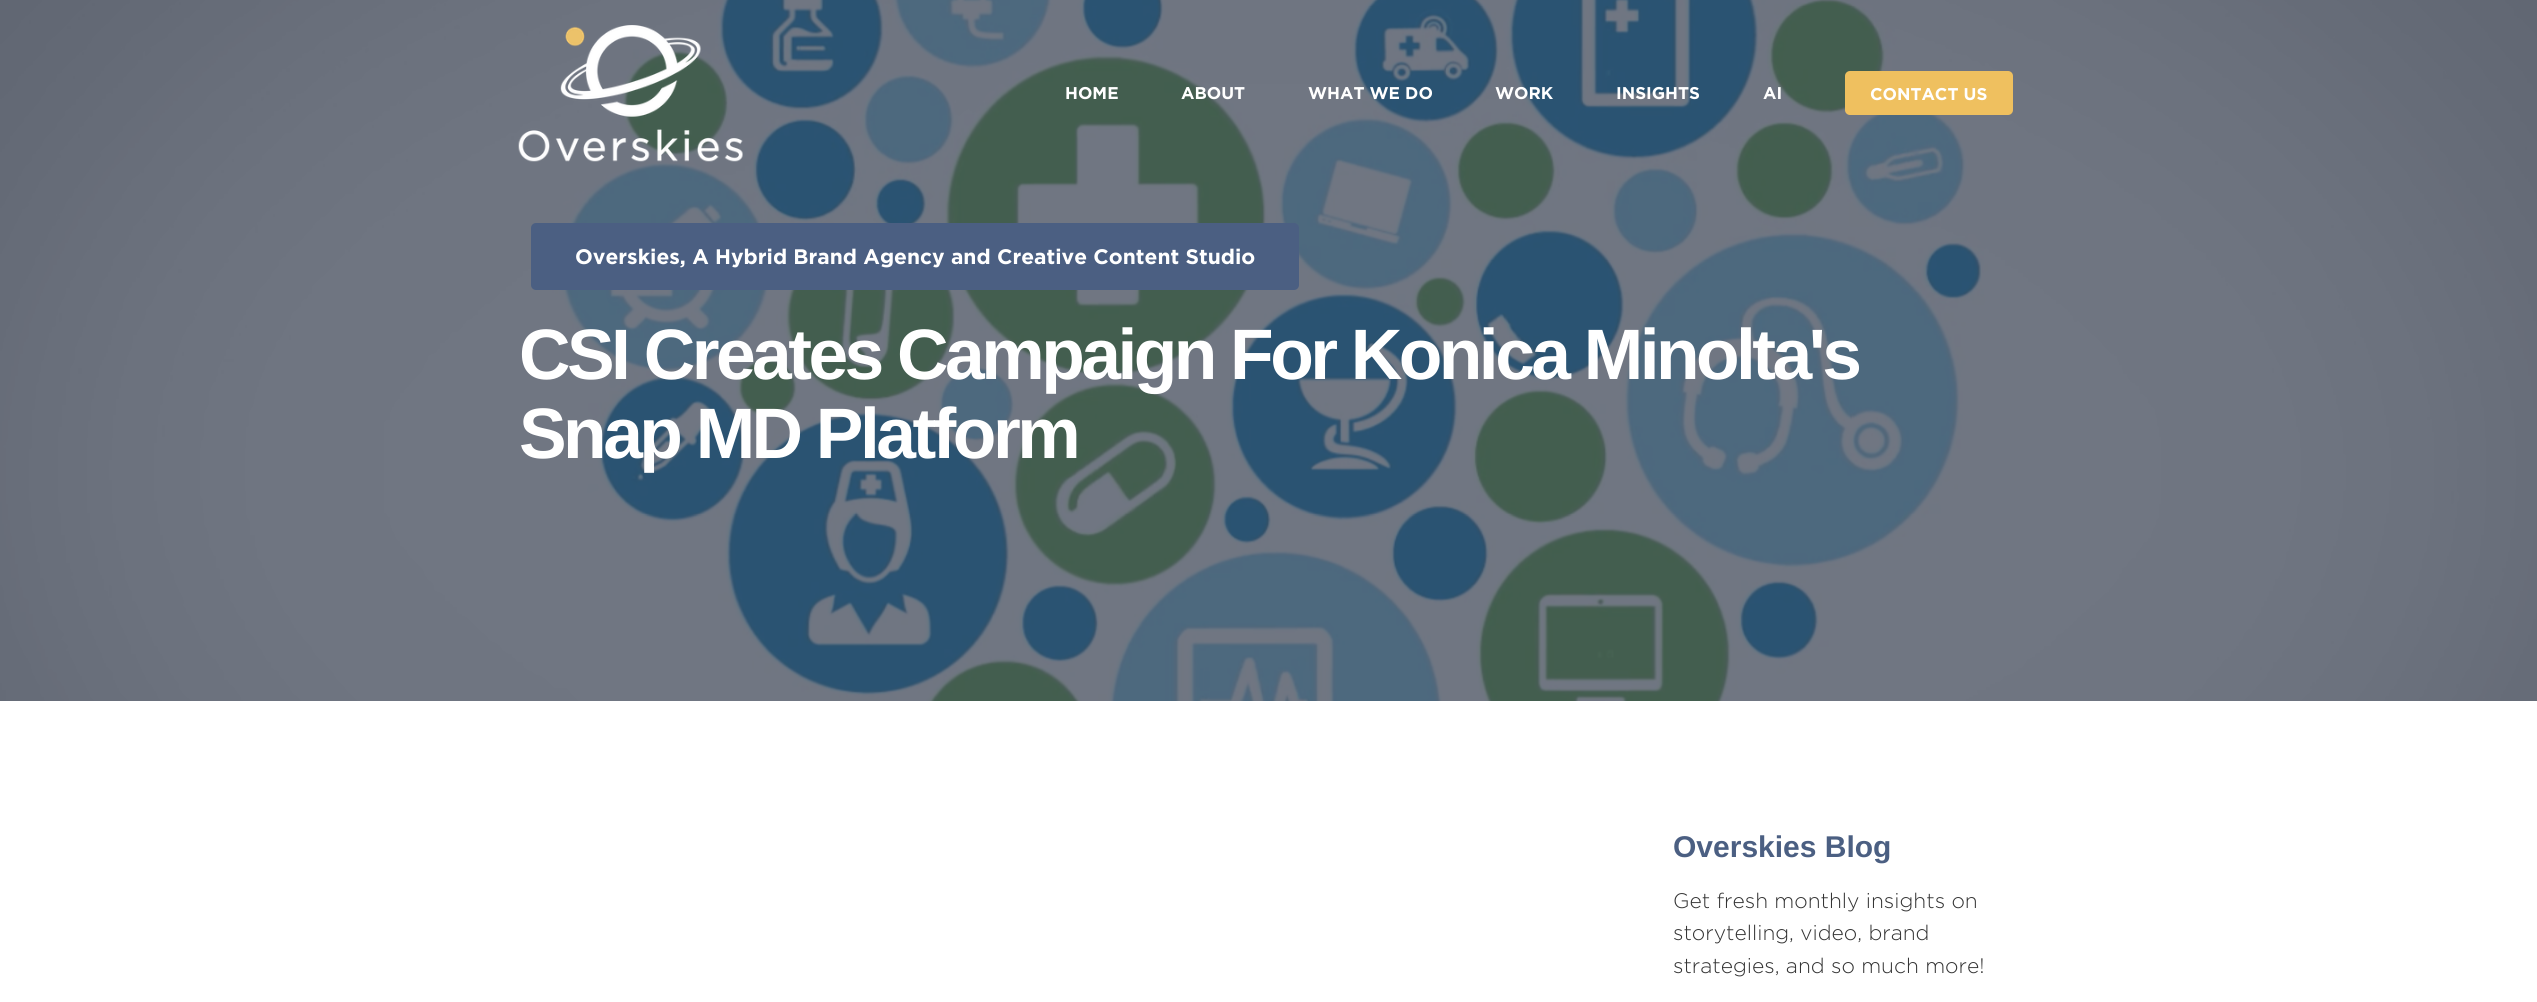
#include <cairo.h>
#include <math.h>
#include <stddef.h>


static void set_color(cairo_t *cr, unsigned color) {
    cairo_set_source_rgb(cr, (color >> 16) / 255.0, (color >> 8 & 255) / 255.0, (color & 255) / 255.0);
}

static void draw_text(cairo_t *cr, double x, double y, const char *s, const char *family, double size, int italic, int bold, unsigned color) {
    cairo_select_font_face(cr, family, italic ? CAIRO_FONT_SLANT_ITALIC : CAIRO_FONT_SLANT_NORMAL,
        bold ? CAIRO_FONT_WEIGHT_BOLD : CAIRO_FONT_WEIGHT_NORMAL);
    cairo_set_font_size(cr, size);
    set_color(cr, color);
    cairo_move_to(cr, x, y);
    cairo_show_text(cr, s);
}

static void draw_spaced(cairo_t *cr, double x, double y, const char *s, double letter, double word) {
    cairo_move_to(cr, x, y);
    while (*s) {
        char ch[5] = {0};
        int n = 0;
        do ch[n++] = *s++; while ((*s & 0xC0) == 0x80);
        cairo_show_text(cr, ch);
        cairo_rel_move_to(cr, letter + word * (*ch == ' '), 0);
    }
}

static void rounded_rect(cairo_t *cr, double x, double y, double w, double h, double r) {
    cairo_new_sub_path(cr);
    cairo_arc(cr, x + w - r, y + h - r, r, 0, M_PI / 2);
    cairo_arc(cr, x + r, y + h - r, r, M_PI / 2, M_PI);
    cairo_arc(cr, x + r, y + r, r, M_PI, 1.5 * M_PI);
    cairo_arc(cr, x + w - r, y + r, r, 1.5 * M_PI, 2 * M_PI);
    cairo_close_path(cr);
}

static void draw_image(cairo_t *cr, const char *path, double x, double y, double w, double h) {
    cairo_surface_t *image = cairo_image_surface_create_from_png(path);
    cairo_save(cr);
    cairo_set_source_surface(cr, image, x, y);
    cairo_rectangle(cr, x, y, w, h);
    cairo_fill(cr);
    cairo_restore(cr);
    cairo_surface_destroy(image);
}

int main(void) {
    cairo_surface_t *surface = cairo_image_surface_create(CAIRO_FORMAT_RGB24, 2537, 1002);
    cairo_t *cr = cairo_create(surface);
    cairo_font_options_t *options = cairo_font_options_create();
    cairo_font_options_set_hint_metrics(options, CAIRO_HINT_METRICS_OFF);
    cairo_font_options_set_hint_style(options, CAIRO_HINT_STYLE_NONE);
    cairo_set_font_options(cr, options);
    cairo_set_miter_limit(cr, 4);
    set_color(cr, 0xFFFFFF);
    cairo_paint(cr);
    draw_image(cr, "assets/img1.png", 0, 0, 2537, 701);
    cairo_set_source_rgba(cr, 0.204, 0.235, 0.302, 0.7);
    cairo_rectangle(cr, 0, 0, 2537, 701);
    cairo_fill(cr);
    draw_image(cr, "assets/img2.png", 518, 25, 225, 137);
    draw_text(cr, 1065, 99, "HOME", "Gotham", 17, 0, 1, 0xFFFFFF);
    draw_text(cr, 1181, 99, "ABOUT", "Gotham", 17, 0, 1, 0xFFFFFF);
    draw_text(cr, 1308, 99, "WHAT WE DO", "Gotham", 17, 0, 1, 0xFFFFFF);
    draw_text(cr, 1495, 99, "WORK", "Gotham", 17, 0, 1, 0xFFFFFF);
    draw_text(cr, 1616, 99, "INSIGHTS", "Gotham", 17, 0, 1, 0xFFFFFF);
    draw_text(cr, 1763, 99, "AI", "Gotham", 17, 0, 1, 0xFFFFFF);
    set_color(cr, 0xEFC05F);
    rounded_rect(cr, 1845, 71, 168, 44, 5);
    cairo_fill(cr);
    draw_text(cr, 1870, 100, "CONTACT US", "Gotham", 17, 0, 1, 0xFFFFFF);
    set_color(cr, 0x4B5F82);
    rounded_rect(cr, 531, 223, 768, 67, 5);
    cairo_fill(cr);
    draw_text(cr, 575, 264, "Overskies, A Hybrid Brand Agency and Creative Content Studio", "Gotham", 21, 0, 1, 0xFFFFFF);
    cairo_select_font_face(cr, "Liberation Sans", CAIRO_FONT_SLANT_NORMAL, CAIRO_FONT_WEIGHT_BOLD);
    cairo_set_font_size(cr, 71.4);
    draw_spaced(cr, 519, 379, "CSI Creates Campaign For Konica Minolta's", -3.55, 0);
    draw_spaced(cr, 519, 458, "Snap MD Platform", -3.55, 0);
    draw_text(cr, 1673, 857, "Overskies Blog", "Liberation Sans", 30, 0, 1, 0x4B5F82);
    draw_text(cr, 1673, 908, "Get fresh monthly insights on", "Gotham Light", 21, 0, 0, 0x333333);
    draw_text(cr, 1673, 940, "storytelling, video, brand", "Gotham Light", 21, 0, 0, 0x333333);
    draw_text(cr, 1673, 973, "strategies, and so much more!", "Gotham Light", 21, 0, 0, 0x333333);
    cairo_surface_write_to_png(surface, "output.png");
    cairo_font_options_destroy(options);
    cairo_destroy(cr);
    cairo_surface_destroy(surface);
    return 0;
}
